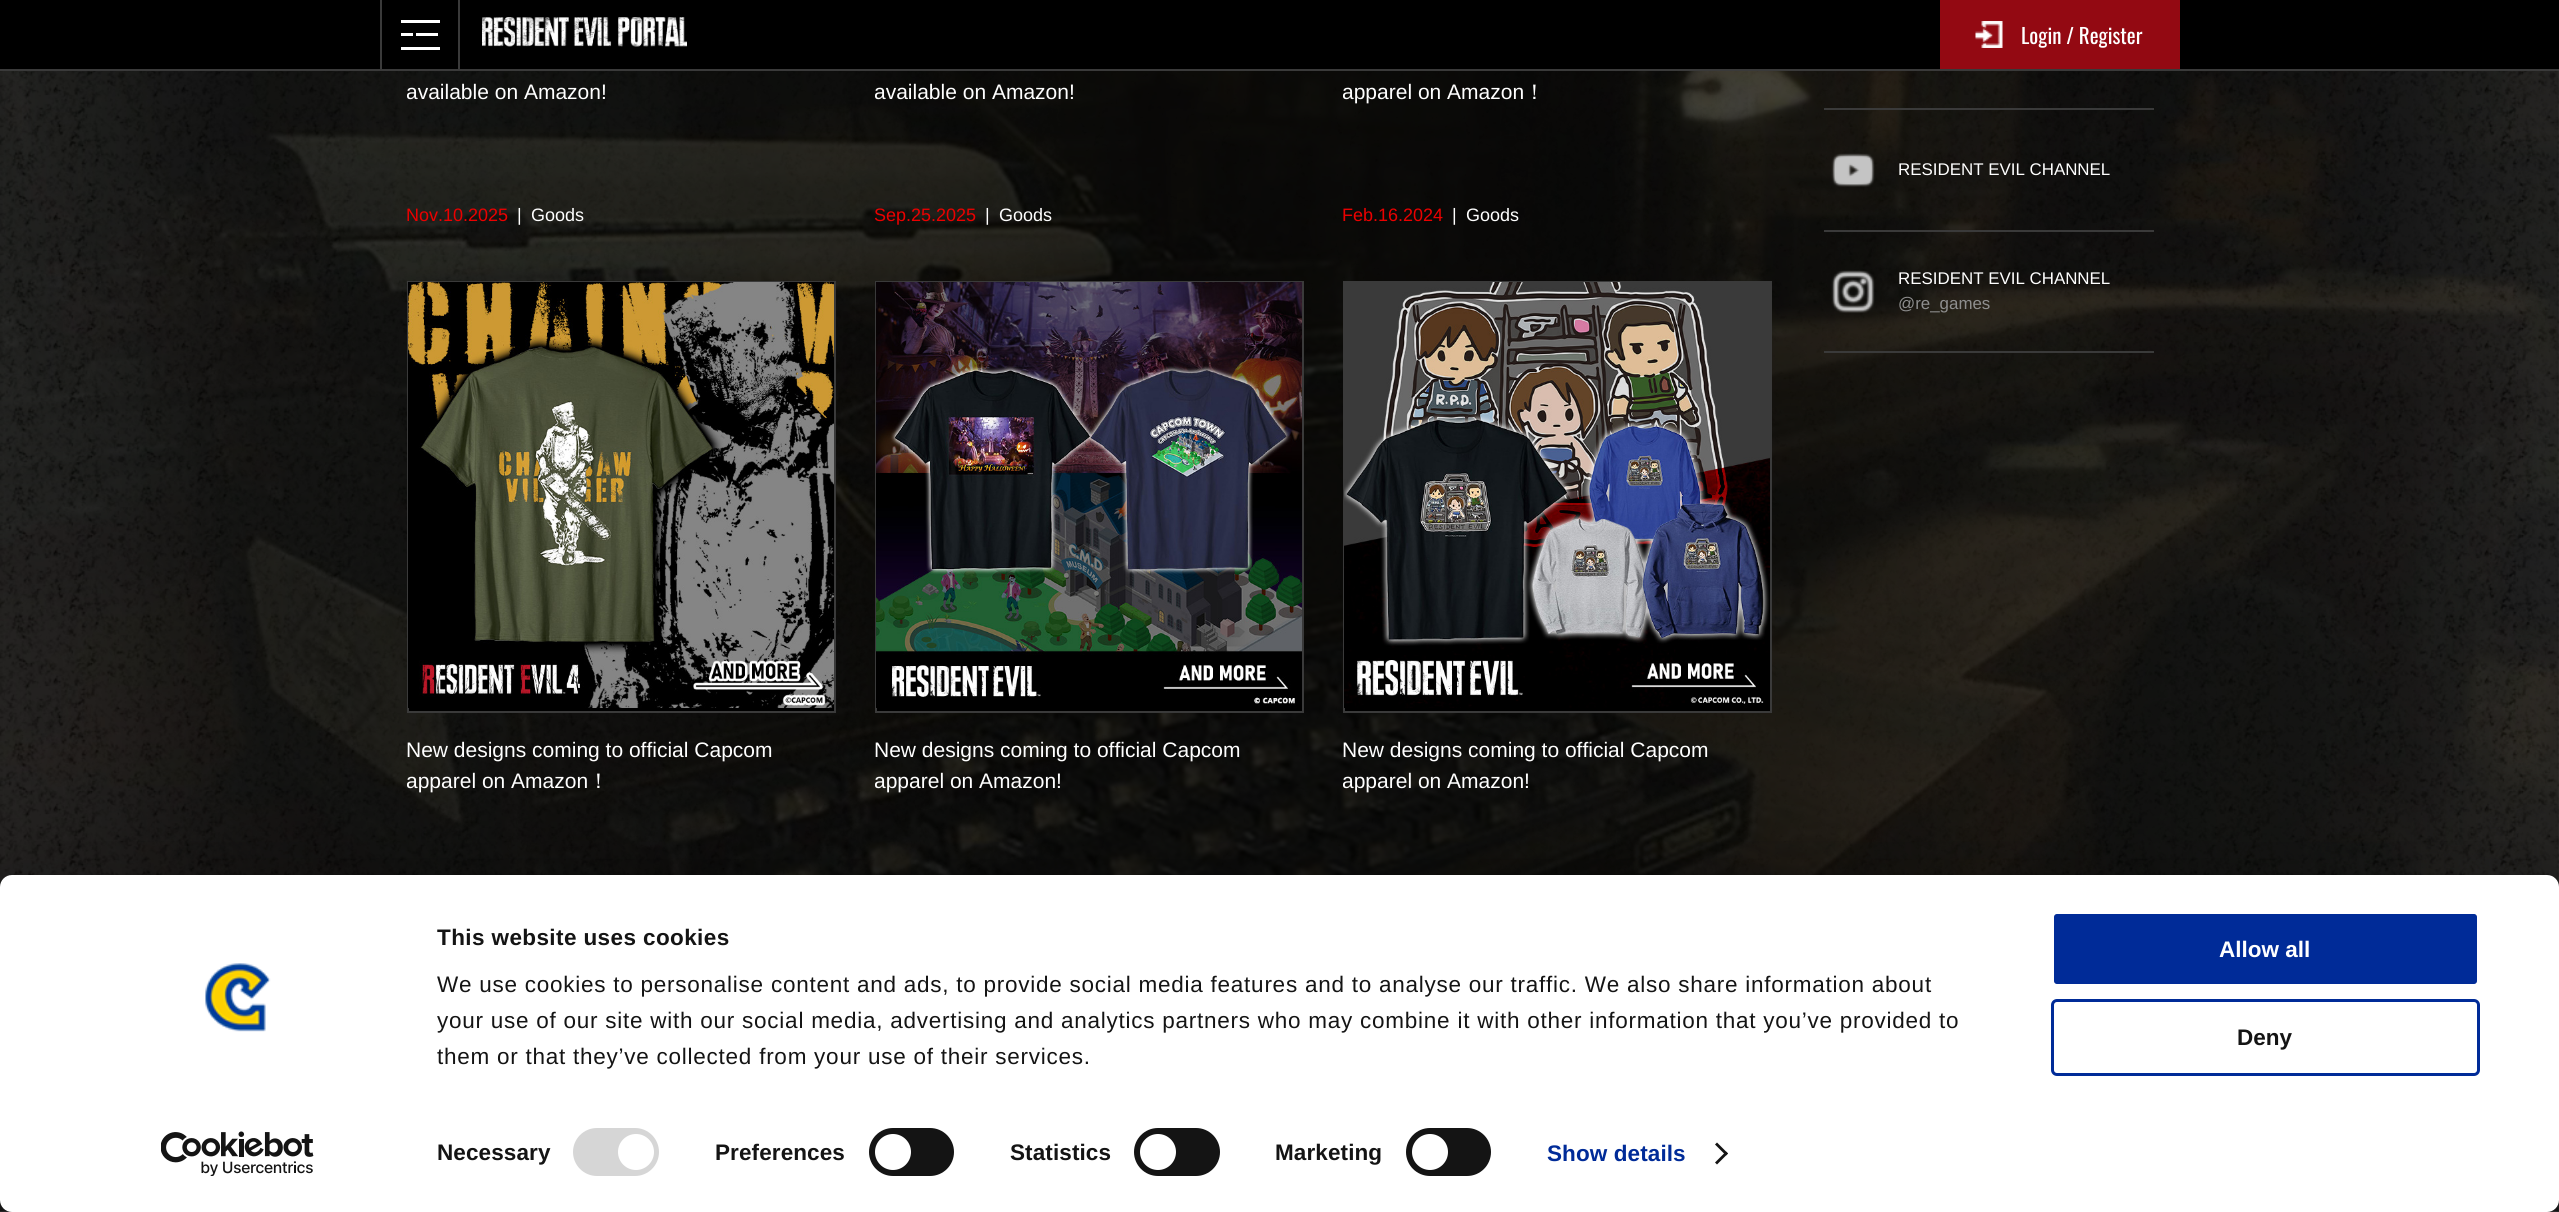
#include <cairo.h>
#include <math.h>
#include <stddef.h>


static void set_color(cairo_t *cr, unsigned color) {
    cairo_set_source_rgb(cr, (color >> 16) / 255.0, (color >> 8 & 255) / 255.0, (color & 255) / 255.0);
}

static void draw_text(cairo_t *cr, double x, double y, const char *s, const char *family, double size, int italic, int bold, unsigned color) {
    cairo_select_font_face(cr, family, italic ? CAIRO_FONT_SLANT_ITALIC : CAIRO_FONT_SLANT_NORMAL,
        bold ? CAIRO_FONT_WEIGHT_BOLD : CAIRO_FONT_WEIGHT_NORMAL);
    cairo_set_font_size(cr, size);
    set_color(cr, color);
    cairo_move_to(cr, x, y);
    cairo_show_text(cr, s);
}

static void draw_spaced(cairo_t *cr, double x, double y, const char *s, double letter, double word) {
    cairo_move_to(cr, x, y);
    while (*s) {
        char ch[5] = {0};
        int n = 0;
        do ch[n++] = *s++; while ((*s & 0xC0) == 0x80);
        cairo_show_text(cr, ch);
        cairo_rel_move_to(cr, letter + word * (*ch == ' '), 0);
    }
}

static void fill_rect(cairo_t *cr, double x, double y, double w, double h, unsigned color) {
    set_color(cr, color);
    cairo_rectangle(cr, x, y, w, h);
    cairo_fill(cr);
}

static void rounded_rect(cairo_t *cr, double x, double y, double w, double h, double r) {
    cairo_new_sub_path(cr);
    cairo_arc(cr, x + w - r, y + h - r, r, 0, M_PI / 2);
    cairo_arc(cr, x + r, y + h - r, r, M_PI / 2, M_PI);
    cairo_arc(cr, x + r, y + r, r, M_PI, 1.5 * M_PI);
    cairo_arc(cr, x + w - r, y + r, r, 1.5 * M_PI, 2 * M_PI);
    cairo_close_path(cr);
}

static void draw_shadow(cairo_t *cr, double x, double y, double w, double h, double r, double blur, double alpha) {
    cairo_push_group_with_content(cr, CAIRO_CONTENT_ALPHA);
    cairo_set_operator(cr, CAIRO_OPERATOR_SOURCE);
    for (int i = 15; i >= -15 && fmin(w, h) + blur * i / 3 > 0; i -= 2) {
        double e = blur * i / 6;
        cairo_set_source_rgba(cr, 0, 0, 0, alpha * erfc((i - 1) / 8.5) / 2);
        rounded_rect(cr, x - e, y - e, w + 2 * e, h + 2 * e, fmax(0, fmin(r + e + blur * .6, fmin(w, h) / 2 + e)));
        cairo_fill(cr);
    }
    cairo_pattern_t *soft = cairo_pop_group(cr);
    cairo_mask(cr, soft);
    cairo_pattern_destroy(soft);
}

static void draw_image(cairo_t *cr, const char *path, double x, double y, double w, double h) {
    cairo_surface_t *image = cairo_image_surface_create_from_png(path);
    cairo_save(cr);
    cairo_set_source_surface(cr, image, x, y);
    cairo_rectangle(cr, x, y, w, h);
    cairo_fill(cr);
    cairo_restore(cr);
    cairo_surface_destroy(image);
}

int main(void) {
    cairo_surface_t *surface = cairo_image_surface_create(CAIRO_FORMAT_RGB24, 2559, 1212);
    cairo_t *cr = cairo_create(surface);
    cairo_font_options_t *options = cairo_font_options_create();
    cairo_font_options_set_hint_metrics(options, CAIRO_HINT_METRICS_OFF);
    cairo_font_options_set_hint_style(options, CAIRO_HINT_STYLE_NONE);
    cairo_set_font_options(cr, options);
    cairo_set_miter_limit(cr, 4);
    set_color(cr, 0xFFFFFF);
    cairo_paint(cr);
    fill_rect(cr, 0, 0, 2559, 69, 0x000000);
    fill_rect(cr, 0, 69, 2559, 2, 0x3A3A3A);
    fill_rect(cr, 458, 0, 2, 69, 0x3A3A3A);
    fill_rect(cr, 380, 0, 2, 69, 0x3A3A3A);
    fill_rect(cr, 401, 20, 39, 3, 0xFFFFFF);
    fill_rect(cr, 401, 33, 12, 3, 0xFFFFFF);
    fill_rect(cr, 416, 33, 22, 3, 0xFFFFFF);
    fill_rect(cr, 401, 47, 39, 3, 0xFFFFFF);
    draw_image(cr, "assets/img1.png", 482, 17, 205, 30);
    fill_rect(cr, 1940, 0, 240, 69, 0x930912);
    draw_image(cr, "assets/img2.png", 1975, 21, 28, 27);
    draw_text(cr, 2021, 44, "Login / Register", "Oswald", 21, 0, 0, 0xFFFFFF);
    draw_image(cr, "assets/img3.png", 0, 71, 2559, 1141);
    draw_image(cr, "assets/img4.png", 0, 71, 2559, 1141);
    cairo_save(cr);
    cairo_rectangle(cr, 407, 45, 429, 126);
    cairo_clip(cr);
    draw_text(cr, 406, 99, "available on Amazon!", "Liberation Sans", 21, 0, 0, 0xFFFFFF);
    cairo_restore(cr);
    draw_text(cr, 406, 221, "Nov.10.2025", "Liberation Sans", 18, 0, 0, 0xEB0000);
    draw_text(cr, 517, 221, "|", "Liberation Sans", 18, 0, 0, 0xFFFFFF);
    draw_text(cr, 531, 221, "Goods", "Liberation Sans", 18, 0, 0, 0xFFFFFF);
    cairo_save(cr);
    cairo_rectangle(cr, 875, 45, 429, 126);
    cairo_clip(cr);
    draw_text(cr, 874, 99, "available on Amazon!", "Liberation Sans", 21, 0, 0, 0xFFFFFF);
    cairo_restore(cr);
    draw_text(cr, 874, 221, "Sep.25.2025", "Liberation Sans", 18, 0, 0, 0xEB0000);
    draw_text(cr, 985, 221, "|", "Liberation Sans", 18, 0, 0, 0xFFFFFF);
    draw_text(cr, 999, 221, "Goods", "Liberation Sans", 18, 0, 0, 0xFFFFFF);
    cairo_save(cr);
    cairo_rectangle(cr, 1343, 45, 429, 126);
    cairo_clip(cr);
    draw_text(cr, 1342, 99, "apparel on Amazon", "Liberation Sans", 21, 0, 0, 0xFFFFFF);
    cairo_restore(cr);
    draw_text(cr, 1524, 99, "！", "WenQuanYi Zen Hei Medium", 21, 0, 0, 0xFFFFFF);
    draw_text(cr, 1342, 221, "Feb.16.2024", "Liberation Sans", 18, 0, 0, 0xEB0000);
    draw_text(cr, 1452, 221, "|", "Liberation Sans", 18, 0, 0, 0xFFFFFF);
    draw_text(cr, 1466, 221, "Goods", "Liberation Sans", 18, 0, 0, 0xFFFFFF);
    fill_rect(cr, 409, 708, 425, 3, 0x000000);
    cairo_rectangle(cr, 408, 282, 427, 430);
    set_color(cr, 0x3A3A3A);
    cairo_stroke(cr);
    draw_image(cr, "assets/img5.png", 408, 282, 426, 426);
    draw_text(cr, 406, 757, "New designs coming to official Capcom", "Liberation Sans", 21, 0, 0, 0xFFFFFF);
    cairo_save(cr);
    cairo_rectangle(cr, 407, 735, 429, 126);
    cairo_clip(cr);
    draw_text(cr, 406, 788, "apparel on Amazon", "Liberation Sans", 21, 0, 0, 0xFFFFFF);
    cairo_restore(cr);
    draw_text(cr, 588, 788, "！", "WenQuanYi Zen Hei Medium", 21, 0, 0, 0xFFFFFF);
    fill_rect(cr, 877, 708, 425, 3, 0x000000);
    cairo_rectangle(cr, 876, 282, 427, 430);
    set_color(cr, 0x3A3A3A);
    cairo_stroke(cr);
    draw_image(cr, "assets/img6.png", 876, 282, 426, 426);
    draw_text(cr, 874, 757, "New designs coming to official Capcom", "Liberation Sans", 21, 0, 0, 0xFFFFFF);
    cairo_save(cr);
    cairo_rectangle(cr, 875, 735, 429, 126);
    cairo_clip(cr);
    draw_text(cr, 874, 788, "apparel on Amazon!", "Liberation Sans", 21, 0, 0, 0xFFFFFF);
    cairo_restore(cr);
    fill_rect(cr, 1345, 708, 425, 3, 0x000000);
    cairo_rectangle(cr, 1344, 282, 427, 430);
    set_color(cr, 0x3A3A3A);
    cairo_stroke(cr);
    draw_image(cr, "assets/img7.png", 1344, 282, 426, 426);
    draw_text(cr, 1342, 757, "New designs coming to official Capcom", "Liberation Sans", 21, 0, 0, 0xFFFFFF);
    cairo_save(cr);
    cairo_rectangle(cr, 1343, 735, 429, 126);
    cairo_clip(cr);
    draw_text(cr, 1342, 788, "apparel on Amazon!", "Liberation Sans", 21, 0, 0, 0xFFFFFF);
    cairo_restore(cr);
    fill_rect(cr, 1824, 108, 330, 2, 0x3A3A3A);
    draw_image(cr, "assets/img8.png", 1831, 153, 44, 34);
    fill_rect(cr, 1824, 230, 330, 2, 0x3A3A3A);
    draw_text(cr, 1898, 175, "RESIDENT EVIL CHANNEL", "Liberation Sans", 16.9, 0, 0, 0xFFFFFF);
    draw_image(cr, "assets/img9.png", 1831, 270, 44, 43);
    fill_rect(cr, 1824, 351, 330, 2, 0x3A3A3A);
    draw_text(cr, 1898, 284, "RESIDENT EVIL CHANNEL", "Liberation Sans", 16.9, 0, 0, 0xFFFFFF);
    draw_text(cr, 1898, 309, "@re_games", "Liberation Sans", 16.9, 0, 0, 0x8E8E8E);
    set_color(cr, 0x000000);
    draw_shadow(cr, 0, 920, 2559, 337, 12, 52.5, 0.3);
    set_color(cr, 0xFFFFFF);
    rounded_rect(cr, 0, 875, 2559, 337, 12);
    cairo_fill(cr);
    draw_image(cr, "assets/img10.png", 205, 963, 66, 69);
    draw_image(cr, "assets/img11.png", 161, 1131, 153, 45);
    cairo_select_font_face(cr, "Liberation Sans", CAIRO_FONT_SLANT_NORMAL, CAIRO_FONT_WEIGHT_BOLD);
    cairo_set_font_size(cr, 22.5);
    set_color(cr, 0x141414);
    draw_spaced(cr, 437, 945, "This website uses cookies", 0.4, 0);
    cairo_select_font_face(cr, "Liberation Sans", CAIRO_FONT_SLANT_NORMAL, CAIRO_FONT_WEIGHT_NORMAL);
    draw_spaced(cr, 437, 992, "We use cookies to personalise content and ads, to provide social media features and to analyse our traffic. We also share information about", 0.75, 0);
    draw_spaced(cr, 437, 1028, "your use of our site with our social media, advertising and analytics partners who may combine it with other information that you’ve provided to", 0.75, 0);
    draw_spaced(cr, 437, 1064, "them or that they’ve collected from your use of their services.", 0.75, 0);
    cairo_select_font_face(cr, "Liberation Sans", CAIRO_FONT_SLANT_NORMAL, CAIRO_FONT_WEIGHT_BOLD);
    draw_spaced(cr, 437, 1160, "Necessary", 0.1, 0);
    set_color(cr, 0xD6D6D6);
    rounded_rect(cr, 573, 1128, 86, 48, 24);
    cairo_fill(cr);
    set_color(cr, 0xFFFFFF);
    cairo_arc(cr, 636, 1152, 18, 0, 2 * M_PI);
    cairo_fill(cr);
    set_color(cr, 0x141414);
    draw_spaced(cr, 715, 1160, "Preferences", 0.1, 0);
    rounded_rect(cr, 869, 1128, 85, 48, 24);
    cairo_fill(cr);
    set_color(cr, 0xFFFFFF);
    cairo_arc(cr, 893, 1152, 18, 0, 2 * M_PI);
    cairo_fill(cr);
    set_color(cr, 0x141414);
    draw_spaced(cr, 1010, 1160, "Statistics", 0.1, 0);
    rounded_rect(cr, 1134, 1128, 86, 48, 24);
    cairo_fill(cr);
    set_color(cr, 0xFFFFFF);
    cairo_arc(cr, 1158, 1152, 18, 0, 2 * M_PI);
    cairo_fill(cr);
    set_color(cr, 0x141414);
    draw_spaced(cr, 1275, 1160, "Marketing", 0.1, 0);
    rounded_rect(cr, 1406, 1128, 85, 48, 24);
    cairo_fill(cr);
    set_color(cr, 0xFFFFFF);
    cairo_arc(cr, 1430, 1152, 18, 0, 2 * M_PI);
    cairo_fill(cr);
    set_color(cr, 0x002B98);
    draw_spaced(cr, 1547, 1161, "Show details", 0.1, 0);
    set_color(cr, 0x141414);
    cairo_new_path(cr);
    cairo_move_to(cr, 1717, 1142.5);
    cairo_line_to(cr, 1728, 1153.5);
    cairo_line_to(cr, 1726, 1155.5);
    cairo_line_to(cr, 1715, 1144.5);
    cairo_close_path(cr);
    cairo_fill(cr);
    cairo_new_path(cr);
    cairo_move_to(cr, 1726, 1151.5);
    cairo_line_to(cr, 1728, 1153.5);
    cairo_line_to(cr, 1717, 1164.5);
    cairo_line_to(cr, 1715, 1162.5);
    cairo_close_path(cr);
    cairo_fill(cr);
    set_color(cr, 0x002B98);
    rounded_rect(cr, 2052.5, 912.5, 426, 73, 4.5);
    cairo_fill_preserve(cr);
    set_color(cr, 0xFFFFFF);
    cairo_set_line_width(cr, 3);
    cairo_stroke(cr);
    draw_text(cr, 2219, 957, "Allow all", "Liberation Sans", 22.5, 0, 1, 0xFFFFFF);
    rounded_rect(cr, 2052.5, 1000.5, 426, 74, 4.5);
    set_color(cr, 0x002B98);
    cairo_stroke(cr);
    draw_text(cr, 2237, 1045, "Deny", "Liberation Sans", 22.5, 0, 1, 0x141414);
    cairo_surface_write_to_png(surface, "output.png");
    cairo_font_options_destroy(options);
    cairo_destroy(cr);
    cairo_surface_destroy(surface);
    return 0;
}
